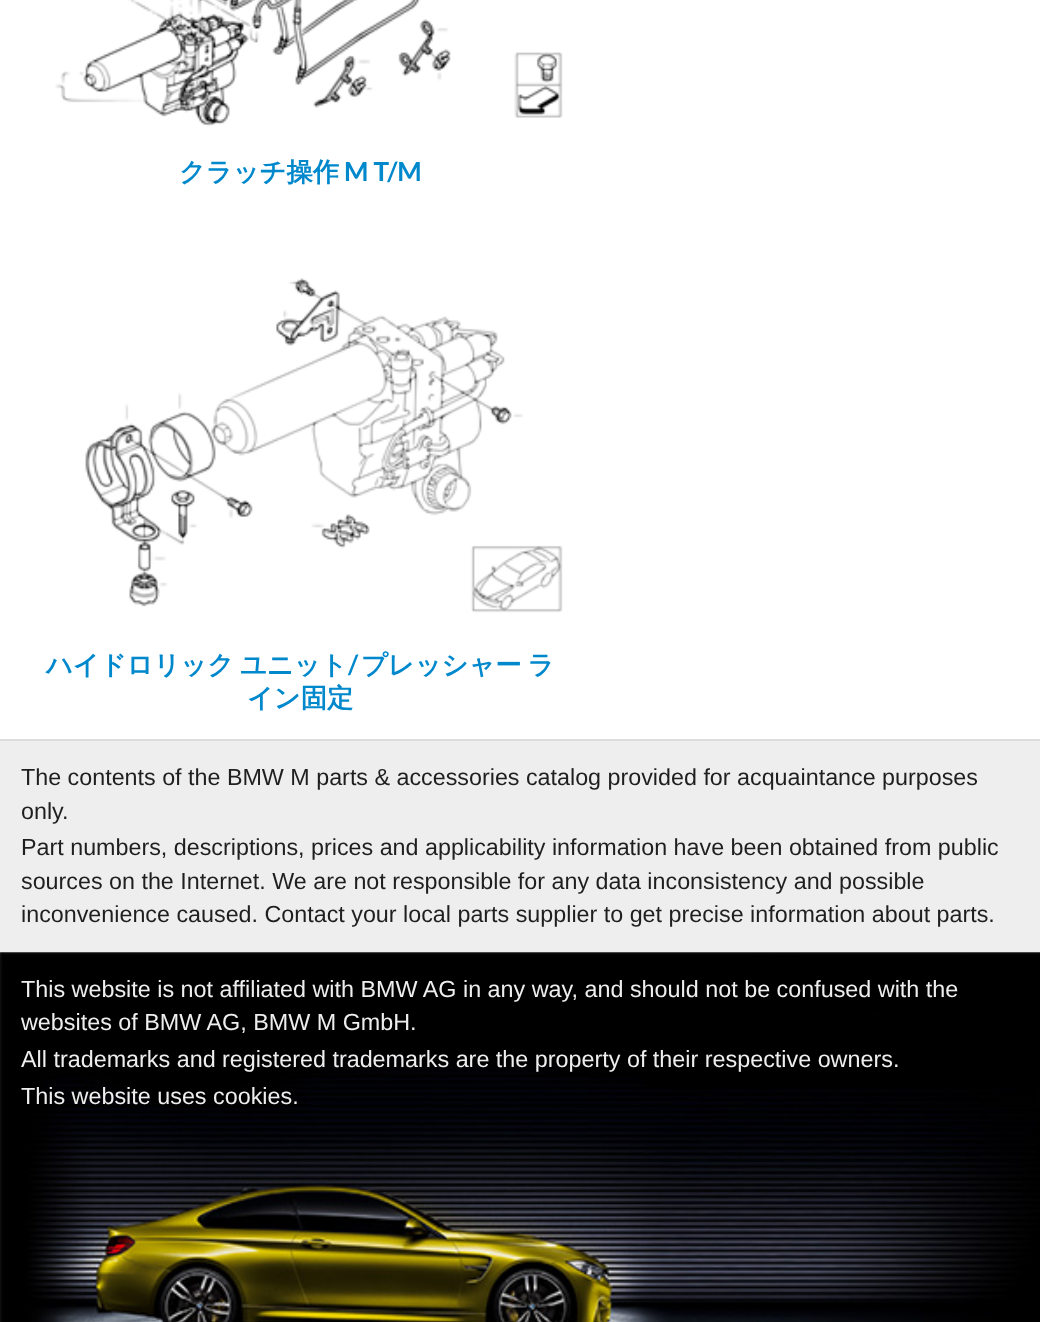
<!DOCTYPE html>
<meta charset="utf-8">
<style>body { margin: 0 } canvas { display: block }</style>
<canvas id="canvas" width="1040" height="1322"></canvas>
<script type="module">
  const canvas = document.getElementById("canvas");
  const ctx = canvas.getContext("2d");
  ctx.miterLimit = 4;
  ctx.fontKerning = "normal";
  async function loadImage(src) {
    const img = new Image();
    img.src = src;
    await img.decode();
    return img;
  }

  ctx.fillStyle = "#ffffff";
  ctx.fillRect(0, 0, 1040, 1322);
  ctx.drawImage(await loadImage("img1.png"), 55, 0, 508, 127);
  ctx.font = "bold 26.25px WenQuanYi Zen Hei";
  ctx.fillStyle = "#0088cc";
  ctx.fillText("クラッチ操作", 179, 181);
  ctx.font = "bold 26.25px Lato";
  ctx.fillText("M T/M", 344, 181);
  ctx.drawImage(await loadImage("img2.png"), 85, 278, 478, 335);
  ctx.wordSpacing = "-2px";
  ctx.font = "bold 26.25px WenQuanYi Zen Hei";
  ctx.fillText("ハイドロリック ユニット", 46, 674);
  ctx.wordSpacing = "0px";
  ctx.font = "bold 26.25px Lato";
  ctx.fillText("/", 348, 674);
  ctx.wordSpacing = "-2px";
  ctx.font = "bold 26.25px WenQuanYi Zen Hei";
  ctx.fillText("プレッシャー ラ", 361, 674);
  ctx.wordSpacing = "0px";
  ctx.fillText("イン固定", 247, 707);
  ctx.fillStyle = "#eeeeee";
  ctx.fillRect(0, 741, 1040, 211);
  ctx.fillStyle = "#dddddd";
  ctx.fillRect(0, 739, 1040, 2);
  ctx.font = "23.3px Liberation Sans";
  ctx.fillStyle = "#1f1f1f";
  ctx.fillText("The contents of the BMW M parts & accessories catalog provided for acquaintance purposes", 21, 785);
  ctx.fillText("only.", 21, 819);
  ctx.fillText("Part numbers, descriptions, prices and applicability information have been obtained from public", 21, 855);
  ctx.fillText("sources on the Internet. We are not responsible for any data inconsistency and possible", 21, 889);
  ctx.fillText("inconvenience caused. Contact your local parts supplier to get precise information about parts.", 21, 922);
  ctx.drawImage(await loadImage("img3.png"), 0, 952, 1040, 370);
  ctx.font = "23.35px Liberation Sans";
  ctx.fillStyle = "#eeeeee";
  ctx.fillText("This website is not affiliated with BMW AG in any way, and should not be confused with the", 21, 997);
  ctx.fillText("websites of BMW AG, BMW M GmbH.", 21, 1030);
  ctx.fillText("All trademarks and registered trademarks are the property of their respective owners.", 21, 1067);
  ctx.fillText("This website uses cookies.", 21, 1104);
</script>
